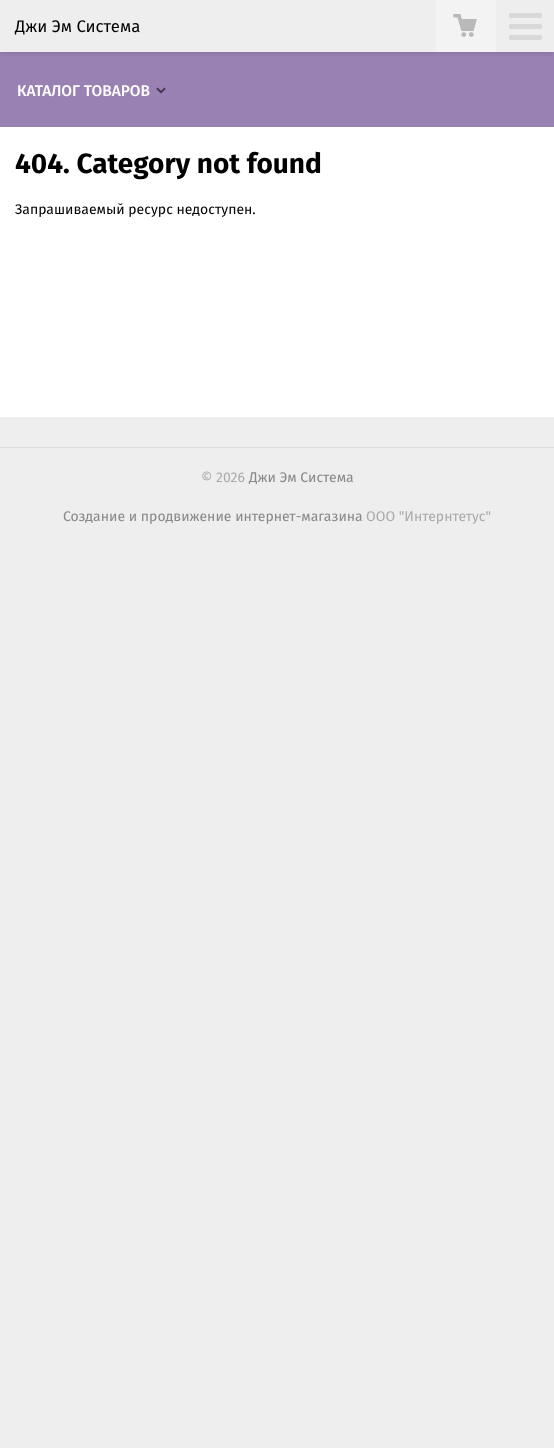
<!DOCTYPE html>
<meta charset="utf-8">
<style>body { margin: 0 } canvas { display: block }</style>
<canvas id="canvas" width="554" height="1448"></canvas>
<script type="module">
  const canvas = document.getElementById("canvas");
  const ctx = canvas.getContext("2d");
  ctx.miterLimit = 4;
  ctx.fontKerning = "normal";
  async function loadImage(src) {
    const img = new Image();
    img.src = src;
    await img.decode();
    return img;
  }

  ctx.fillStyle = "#eeeeee";
  ctx.fillRect(0, 0, 554, 1448);
  ctx.fillStyle = "#9a81b3";
  ctx.fillRect(0, 52, 554, 75);
  ctx.save();
  ctx.beginPath();
  ctx.rect(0, 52, 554, 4);
  ctx.clip();
  ctx.fillStyle = "rgba(0, 0, 0, 0.1)";
  ctx.filter = "blur(2.5px)";
  ctx.beginPath();
  ctx.rect(0, 2, 554, 52);
  ctx.fill();
  ctx.filter = "none";
  ctx.restore();
  ctx.font = "16.75px Fira Sans";
  ctx.fillStyle = "#000000";
  ctx.fillText("Джи Эм Система", 15, 32);
  ctx.fillStyle = "#f3f3f3";
  ctx.fillRect(436, 0, 60, 52);
  ctx.drawImage(await loadImage("img1.png"), 453, 14, 24, 23);
  ctx.drawImage(await loadImage("img2.png"), 509, 13, 33, 27);
  ctx.drawImage(await loadImage("img3.png"), 156, 87, 10, 7);
  ctx.font = "500 15.5px Fira Sans";
  ctx.fillStyle = "#ffffff";
  ctx.fillText("КАТАЛОГ ТОВАРОВ", 17, 96);
  ctx.fillRect(0, 127, 554, 290);
  ctx.font = "bold 28px Fira Sans";
  ctx.fillStyle = "#000000";
  ctx.fillText("404. Category not found", 15, 173);
  ctx.font = "14px Fira Sans";
  ctx.fillText("Запрашиваемый ресурс недоступен.", 15, 214);
  ctx.fillStyle = "#dddddd";
  ctx.fillRect(0, 447, 554, 1);
  ctx.fillStyle = "#aaaaaa";
  ctx.fillText("© 2026", 201, 482);
  ctx.fillStyle = "#888888";
  ctx.fillText("Джи Эм Система", 249, 482);
  ctx.fillText("Создание и продвижение интернет-магазина", 63, 521);
  ctx.fillStyle = "#aaaaaa";
  ctx.fillText("ООО \"Интернтетус\"", 366, 521);
</script>
